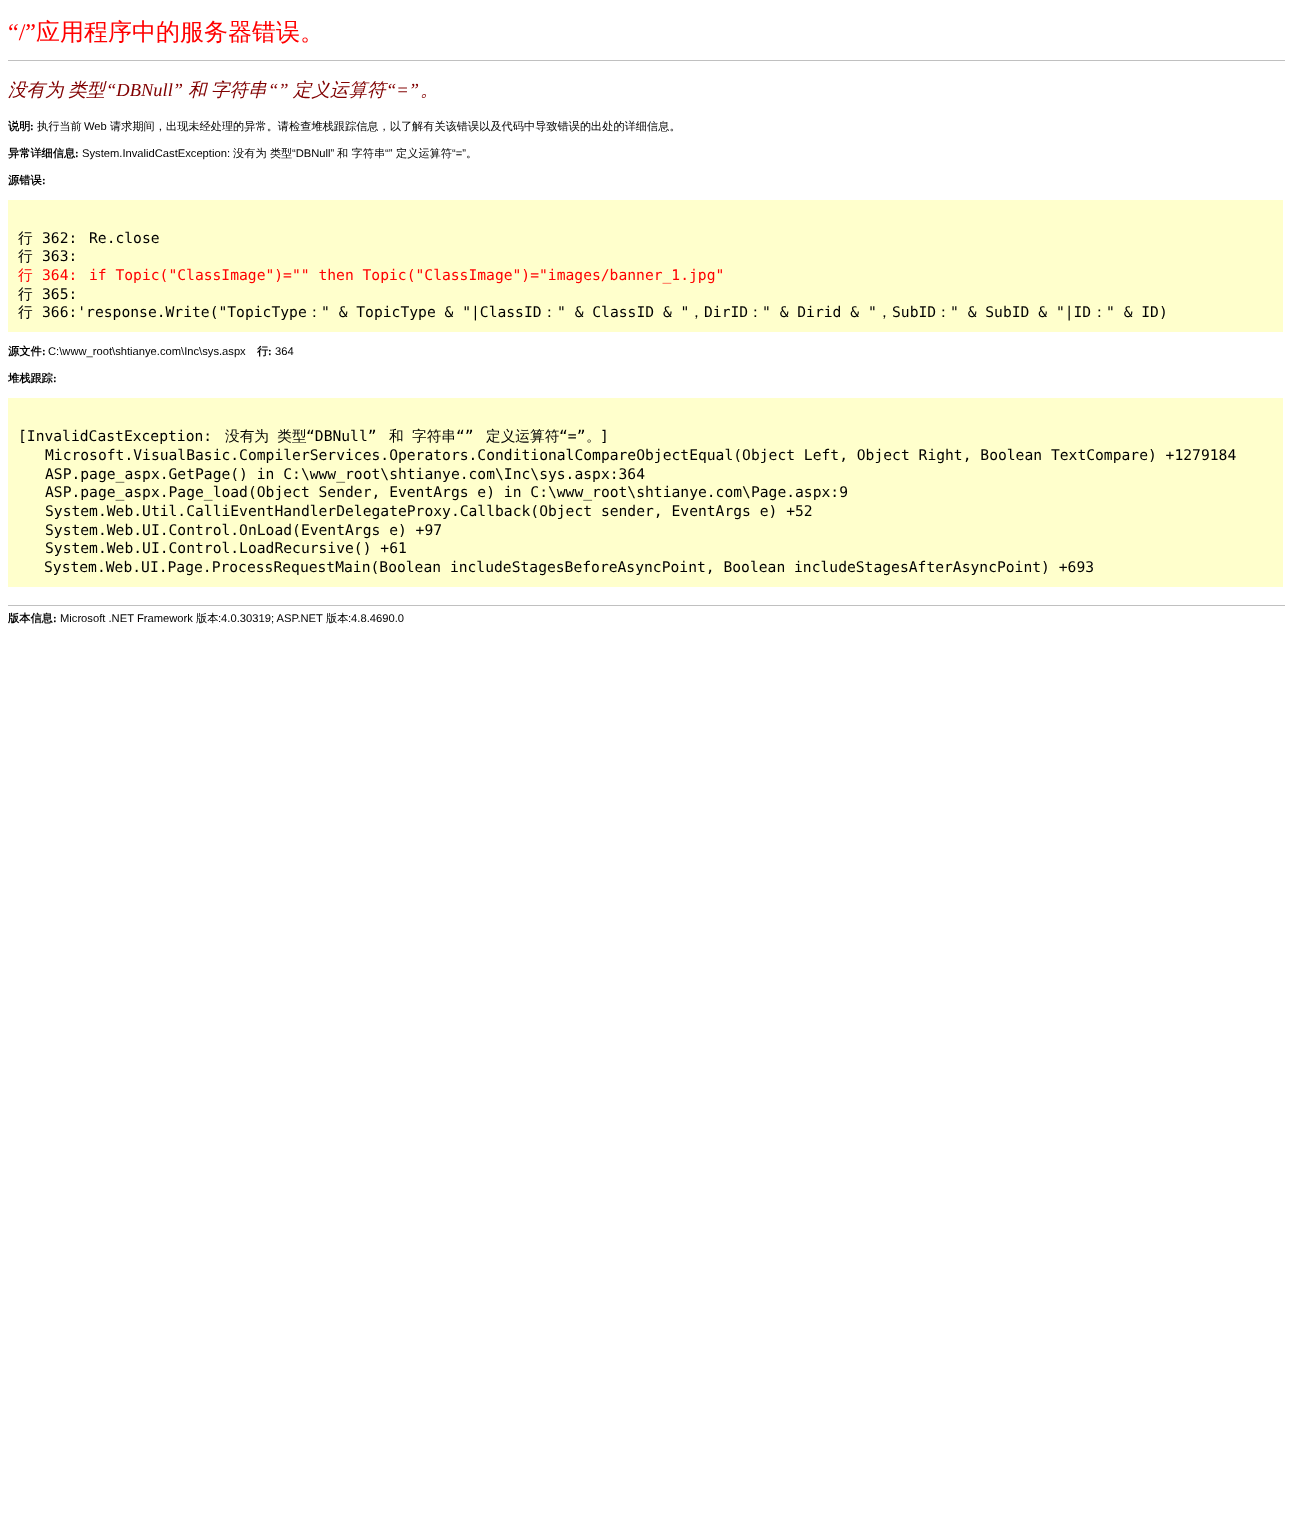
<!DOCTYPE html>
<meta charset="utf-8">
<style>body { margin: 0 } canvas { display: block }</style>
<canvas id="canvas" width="1291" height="1532"></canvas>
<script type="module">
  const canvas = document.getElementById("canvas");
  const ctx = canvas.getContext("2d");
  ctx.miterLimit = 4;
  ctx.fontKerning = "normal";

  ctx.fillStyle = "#ffffff";
  ctx.fillRect(0, 0, 1291, 1532);
  ctx.font = "24px Liberation Serif";
  ctx.fillStyle = "#ff0000";
  ctx.fillText("“/”", 8, 40);
  ctx.font = "500 24px WenQuanYi Zen Hei";
  ctx.fillText("应用程序中的服务器错误。", 36, 40);
  ctx.fillStyle = "#c0c0c0";
  ctx.fillRect(8, 60, 1277, 1);
  ctx.wordSpacing = "-1px";
  ctx.font = "italic 500 18.5px WenQuanYi Zen Hei";
  ctx.fillStyle = "#800000";
  ctx.fillText("没有为 类型", 8, 96);
  ctx.wordSpacing = "0px";
  ctx.font = "italic 18.5px Liberation Serif";
  ctx.fillText("“DBNull”", 106, 96);
  ctx.wordSpacing = "-1px";
  ctx.font = "italic 500 18.5px WenQuanYi Zen Hei";
  ctx.fillText("和 字符串", 188, 96);
  ctx.wordSpacing = "0px";
  ctx.font = "italic 18.5px Liberation Serif";
  ctx.fillText("“”", 268, 96);
  ctx.font = "italic 500 18.5px WenQuanYi Zen Hei";
  ctx.fillText("定义运算符", 293, 96);
  ctx.font = "italic 18.5px Liberation Serif";
  ctx.fillText("“=”", 386, 96);
  ctx.font = "italic 500 18.5px WenQuanYi Zen Hei";
  ctx.fillText("。", 420, 96);
  ctx.font = "bold 11.2px WenQuanYi Zen Hei";
  ctx.fillStyle = "#000000";
  ctx.fillText("说明", 8, 130);
  ctx.font = "bold 11.2px Liberation Serif";
  ctx.fillText(":", 30, 130);
  ctx.font = "500 11.2px WenQuanYi Zen Hei";
  ctx.fillText("执行当前", 37, 130);
  ctx.font = "11.2px Liberation Sans";
  ctx.fillText("Web", 84, 130);
  ctx.font = "500 11.2px WenQuanYi Zen Hei";
  ctx.fillText("请求期间，出现未经处理的异常。请检查堆栈跟踪信息，以了解有关该错误以及代码中导致错误的出处的详细信息。", 110, 130);
  ctx.font = "bold 11.2px WenQuanYi Zen Hei";
  ctx.fillText("异常详细信息", 8, 157);
  ctx.font = "bold 11.2px Liberation Serif";
  ctx.fillText(":", 75, 157);
  ctx.font = "11.2px Liberation Sans";
  ctx.fillText("System.InvalidCastException:", 82, 157);
  ctx.font = "500 11.2px WenQuanYi Zen Hei";
  ctx.fillText("没有为 类型", 233, 157);
  ctx.font = "11.2px Liberation Sans";
  ctx.fillText("“DBNull”", 292, 157);
  ctx.font = "500 11.2px WenQuanYi Zen Hei";
  ctx.fillText("和 字符串", 337, 157);
  ctx.font = "11.2px Liberation Sans";
  ctx.fillText("“”", 385, 157);
  ctx.font = "500 11.2px WenQuanYi Zen Hei";
  ctx.fillText("定义运算符", 396, 157);
  ctx.font = "11.2px Liberation Sans";
  ctx.fillText("“=”", 452, 157);
  ctx.font = "500 11.2px WenQuanYi Zen Hei";
  ctx.fillText("。", 466, 157);
  ctx.font = "bold 11.2px WenQuanYi Zen Hei";
  ctx.fillText("源错误", 8, 184);
  ctx.font = "bold 11.2px Liberation Serif";
  ctx.fillText(":", 42, 184);
  ctx.fillStyle = "#ffffcc";
  ctx.fillRect(8, 200, 1275, 132);
  ctx.font = "500 14.67px WenQuanYi Zen Hei";
  ctx.fillStyle = "#000000";
  ctx.fillText("行", 18, 243);
  ctx.font = "14.67px DejaVu Sans Mono";
  ctx.fillText("362:", 42, 243);
  ctx.fillText("Re.close", 89, 243);
  ctx.font = "500 14.67px WenQuanYi Zen Hei";
  ctx.fillText("行", 18, 261);
  ctx.font = "14.67px DejaVu Sans Mono";
  ctx.fillText("363:", 42, 261);
  ctx.font = "500 14.67px WenQuanYi Zen Hei";
  ctx.fillStyle = "#ff0000";
  ctx.fillText("行", 18, 280);
  ctx.font = "14.67px DejaVu Sans Mono";
  ctx.fillText("364:", 42, 280);
  ctx.fillText("if Topic(\"ClassImage\")=\"\" then Topic(\"ClassImage\")=\"images/banner_1.jpg\"", 89, 280);
  ctx.font = "500 14.67px WenQuanYi Zen Hei";
  ctx.fillStyle = "#000000";
  ctx.fillText("行", 18, 299);
  ctx.font = "14.67px DejaVu Sans Mono";
  ctx.fillText("365:", 42, 299);
  ctx.font = "500 14.67px WenQuanYi Zen Hei";
  ctx.fillText("行", 18, 317);
  ctx.font = "14.67px DejaVu Sans Mono";
  ctx.fillText("366:'response.Write(\"TopicType", 42, 317);
  ctx.font = "500 14.67px WenQuanYi Zen Hei";
  ctx.fillText("：", 307, 317);
  ctx.font = "14.67px DejaVu Sans Mono";
  ctx.fillText("\" & TopicType & \"|ClassID", 321, 317);
  ctx.font = "500 14.67px WenQuanYi Zen Hei";
  ctx.fillText("：", 542, 317);
  ctx.font = "14.67px DejaVu Sans Mono";
  ctx.fillText("\" & ClassID & \"", 557, 317);
  ctx.font = "500 14.67px WenQuanYi Zen Hei";
  ctx.fillText("，", 689, 317);
  ctx.font = "14.67px DejaVu Sans Mono";
  ctx.fillText("DirID", 704, 317);
  ctx.font = "500 14.67px WenQuanYi Zen Hei";
  ctx.fillText("：", 748, 317);
  ctx.font = "14.67px DejaVu Sans Mono";
  ctx.fillText("\" & Dirid & \"", 762, 317);
  ctx.font = "500 14.67px WenQuanYi Zen Hei";
  ctx.fillText("，", 877, 317);
  ctx.font = "14.67px DejaVu Sans Mono";
  ctx.fillText("SubID", 892, 317);
  ctx.font = "500 14.67px WenQuanYi Zen Hei";
  ctx.fillText("：", 936, 317);
  ctx.font = "14.67px DejaVu Sans Mono";
  ctx.fillText("\" & SubID & \"|ID", 950, 317);
  ctx.font = "500 14.67px WenQuanYi Zen Hei";
  ctx.fillText("：", 1092, 317);
  ctx.font = "14.67px DejaVu Sans Mono";
  ctx.fillText("\" & ID)", 1106, 317);
  ctx.font = "bold 11.2px WenQuanYi Zen Hei";
  ctx.fillText("源文件", 8, 355);
  ctx.font = "bold 11.2px Liberation Serif";
  ctx.fillText(":", 42, 355);
  ctx.font = "11.2px Liberation Sans";
  ctx.fillText("C:\\www_root\\shtianye.com\\Inc\\sys.aspx", 48, 355);
  ctx.font = "bold 11.2px WenQuanYi Zen Hei";
  ctx.fillText("行", 257, 355);
  ctx.font = "bold 11.2px Liberation Serif";
  ctx.fillText(":", 268, 355);
  ctx.font = "11.2px Liberation Sans";
  ctx.fillText("364", 275, 355);
  ctx.font = "bold 11.2px WenQuanYi Zen Hei";
  ctx.fillText("堆栈跟踪", 8, 382);
  ctx.font = "bold 11.2px Liberation Serif";
  ctx.fillText(":", 53, 382);
  ctx.fillStyle = "#ffffcc";
  ctx.fillRect(8, 398, 1275, 189);
  ctx.font = "14.67px DejaVu Sans Mono";
  ctx.fillStyle = "#000000";
  ctx.fillText("[InvalidCastException:", 18, 441);
  ctx.wordSpacing = "4px";
  ctx.font = "500 14.67px WenQuanYi Zen Hei";
  ctx.fillText("没有为 类型", 225, 441);
  ctx.wordSpacing = "0px";
  ctx.font = "14.67px DejaVu Sans Mono";
  ctx.fillText("“DBNull”", 306, 441);
  ctx.wordSpacing = "4px";
  ctx.font = "500 14.67px WenQuanYi Zen Hei";
  ctx.fillText("和 字符串", 389, 441);
  ctx.wordSpacing = "0px";
  ctx.font = "14.67px DejaVu Sans Mono";
  ctx.fillText("“”", 456, 441);
  ctx.font = "500 14.67px WenQuanYi Zen Hei";
  ctx.fillText("定义运算符", 486, 441);
  ctx.font = "14.67px DejaVu Sans Mono";
  ctx.fillText("“=”", 559, 441);
  ctx.font = "500 14.67px WenQuanYi Zen Hei";
  ctx.fillText("。", 586, 441);
  ctx.font = "14.67px DejaVu Sans Mono";
  ctx.fillText("]", 600, 441);
  ctx.fillText("Microsoft.VisualBasic.CompilerServices.Operators.ConditionalCompareObjectEqual(Object Left, Object Right, Boolean TextCompare) +1279184", 45, 460);
  ctx.fillText("ASP.page_aspx.GetPage() in C:\\www_root\\shtianye.com\\Inc\\sys.aspx:364", 45, 479);
  ctx.fillText("ASP.page_aspx.Page_load(Object Sender, EventArgs e) in C:\\www_root\\shtianye.com\\Page.aspx:9", 45, 497);
  ctx.fillText("System.Web.Util.CalliEventHandlerDelegateProxy.Callback(Object sender, EventArgs e) +52", 45, 516);
  ctx.fillText("System.Web.UI.Control.OnLoad(EventArgs e) +97", 45, 535);
  ctx.fillText("System.Web.UI.Control.LoadRecursive() +61", 45, 553);
  ctx.fillText("System.Web.UI.Page.ProcessRequestMain(Boolean includeStagesBeforeAsyncPoint, Boolean includeStagesAfterAsyncPoint) +693", 44, 572);
  ctx.fillStyle = "#c0c0c0";
  ctx.fillRect(8, 605, 1277, 1);
  ctx.font = "bold 11.2px WenQuanYi Zen Hei";
  ctx.fillStyle = "#000000";
  ctx.fillText("版本信息", 8, 622);
  ctx.font = "bold 11.2px Liberation Serif";
  ctx.fillText(":", 53, 622);
  ctx.font = "11.2px Liberation Sans";
  ctx.fillText("Microsoft .NET Framework", 60, 622);
  ctx.font = "500 11.2px WenQuanYi Zen Hei";
  ctx.fillText("版本", 196, 622);
  ctx.font = "11.2px Liberation Sans";
  ctx.fillText(":4.0.30319; ASP.NET", 218, 622);
  ctx.font = "500 11.2px WenQuanYi Zen Hei";
  ctx.fillText("版本", 326, 622);
  ctx.font = "11.2px Liberation Sans";
  ctx.fillText(":4.8.4690.0", 348, 622);
</script>
